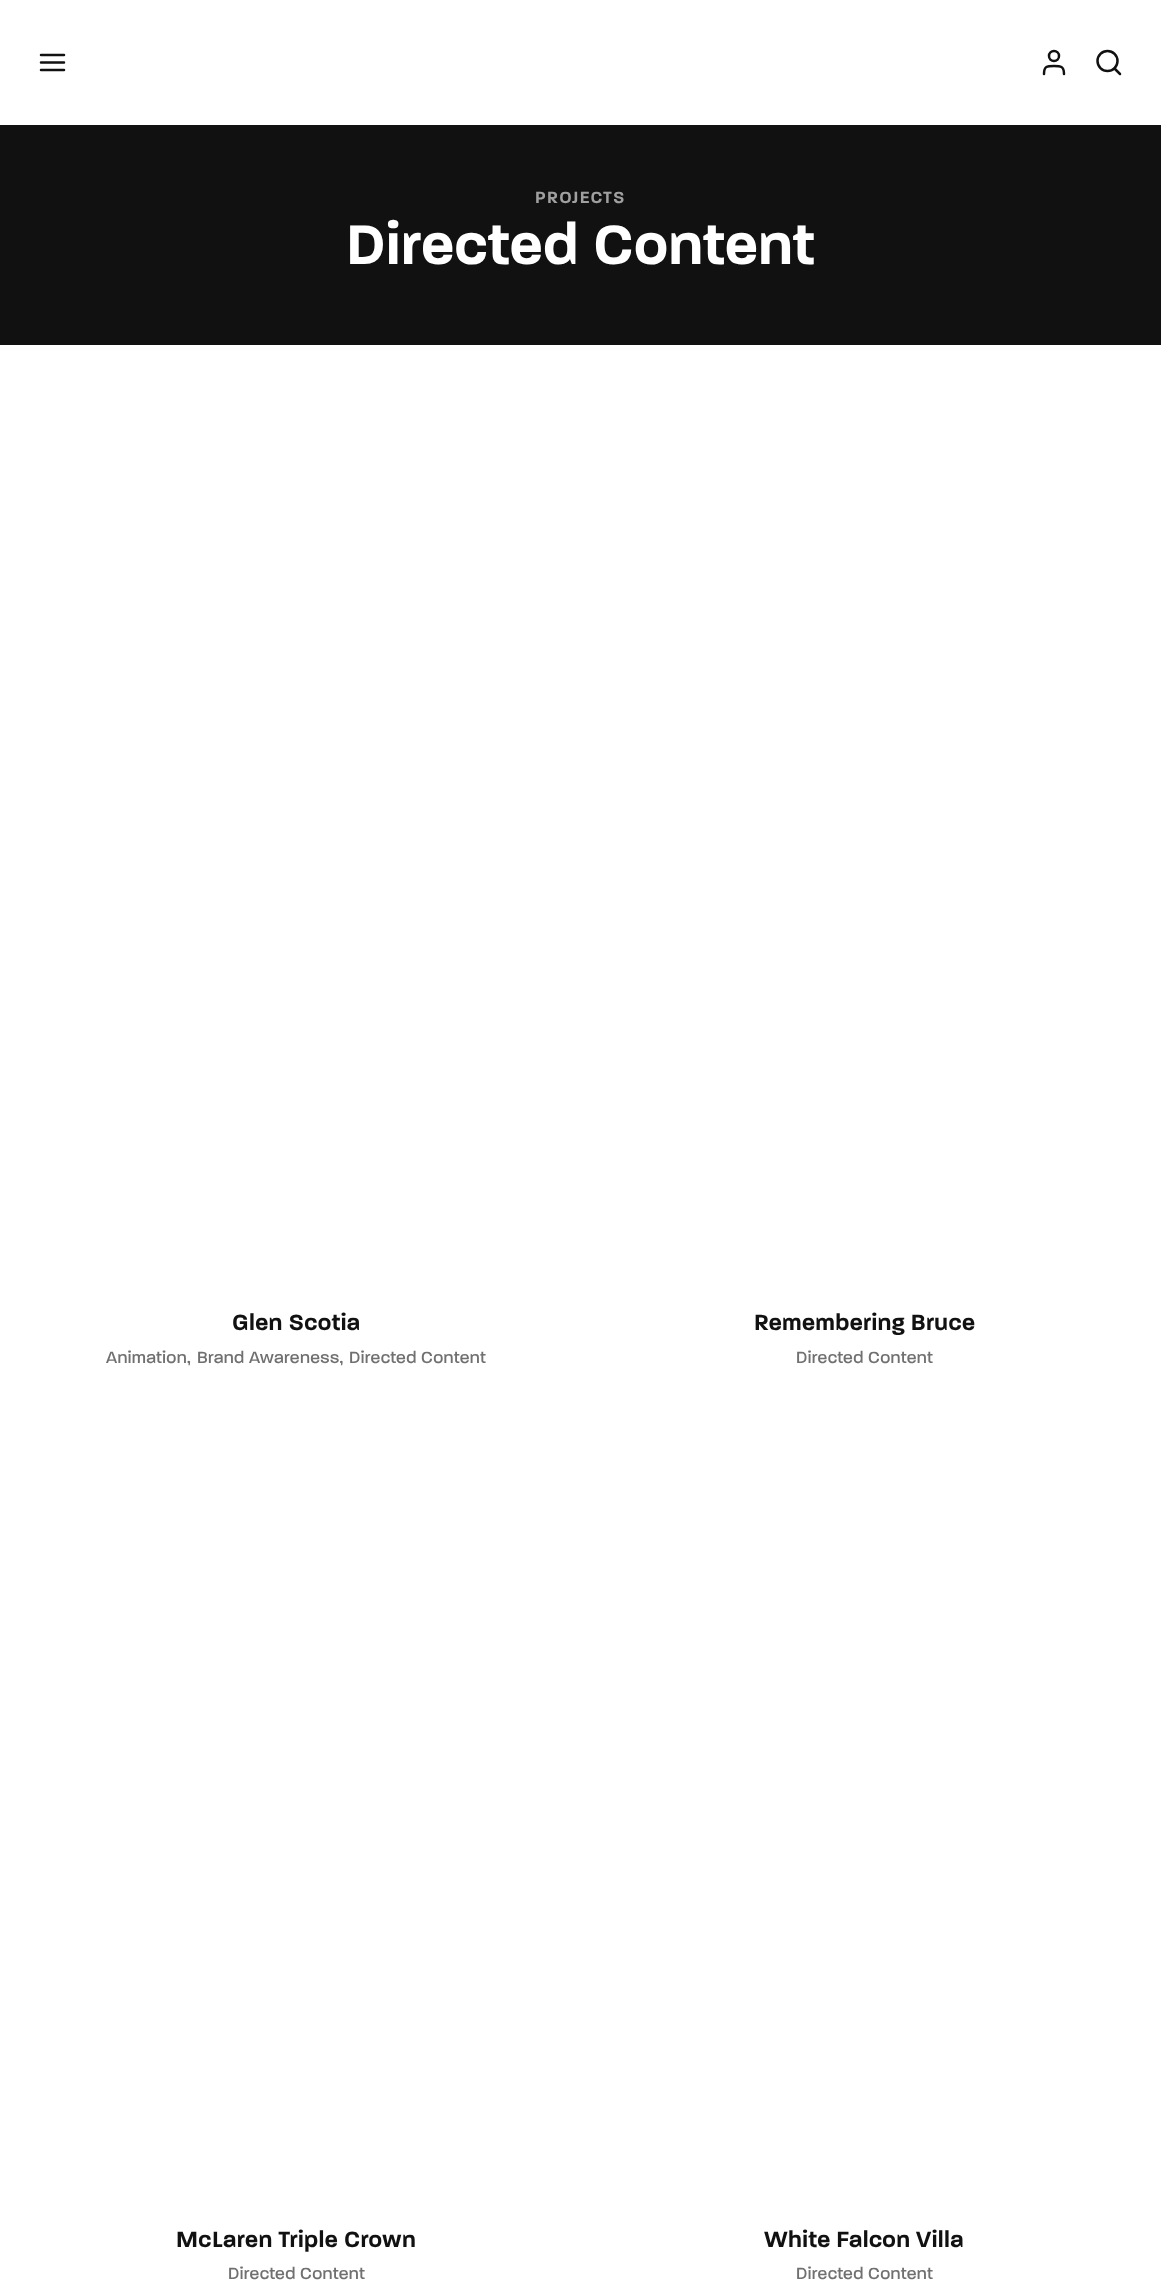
<!DOCTYPE html>
<meta charset="utf-8">
<style>body { margin: 0 } canvas { display: block }</style>
<canvas id="canvas" width="1161" height="2282"></canvas>
<script type="module">
  const canvas = document.getElementById("canvas");
  const ctx = canvas.getContext("2d");
  ctx.miterLimit = 4;
  ctx.fontKerning = "normal";

  ctx.fillStyle = "#ffffff";
  ctx.fillRect(0, 0, 1161, 2282);
  ctx.beginPath();
  ctx.moveTo(41, 62.5);
  ctx.lineTo(64, 62.5);
  ctx.moveTo(41, 55);
  ctx.lineTo(64, 55);
  ctx.moveTo(41, 70);
  ctx.lineTo(64, 70);
  ctx.strokeStyle = "#111111";
  ctx.lineWidth = 2.5;
  ctx.lineCap = "round";
  ctx.lineJoin = "round";
  ctx.stroke();
  ctx.beginPath();
  ctx.moveTo(1064, 74);
  ctx.bezierCurveTo(1064, 66, 1060.5, 66, 1054, 66);
  ctx.bezierCurveTo(1047, 66, 1044, 66, 1044, 74);
  ctx.stroke();
  ctx.beginPath();
  ctx.arc(1054, 56, 5, 0, Math.PI * 2);
  ctx.stroke();
  ctx.beginPath();
  ctx.arc(1107.5, 61, 10, 0, Math.PI * 2);
  ctx.stroke();
  ctx.beginPath();
  ctx.moveTo(1120, 74);
  ctx.lineTo(1114.5, 68.5);
  ctx.stroke();
  ctx.fillStyle = "#111111";
  ctx.fillRect(0, 125, 1161, 220);
  ctx.letterSpacing = "1.25px";
  ctx.font = "600 17.5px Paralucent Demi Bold";
  ctx.fillStyle = "#a0a0a0";
  ctx.fillText("PROJECTS", 535, 203);
  ctx.letterSpacing = "0.4px";
  ctx.font = "600 60px Paralucent Demi Bold";
  ctx.fillStyle = "#ffffff";
  ctx.fillText("Directed Content", 346, 264);
  ctx.font = "600 23.75px Paralucent Demi Bold";
  ctx.fillStyle = "#111111";
  ctx.fillText("Glen Scotia", 232, 1330);
  ctx.font = "500 17.5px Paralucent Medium";
  ctx.fillStyle = "#707070";
  ctx.fillText("Animation,", 106, 1363);
  ctx.fillText("Brand Awareness,", 197, 1363);
  ctx.fillText("Directed Content", 349, 1363);
  ctx.font = "600 23.75px Paralucent Demi Bold";
  ctx.fillStyle = "#111111";
  ctx.fillText("Remembering Bruce", 754, 1330);
  ctx.font = "500 17.5px Paralucent Medium";
  ctx.fillStyle = "#707070";
  ctx.fillText("Directed Content", 796, 1363);
  ctx.font = "600 23.75px Paralucent Demi Bold";
  ctx.fillStyle = "#111111";
  ctx.fillText("McLaren Triple Crown", 176, 2247);
  ctx.font = "500 17.5px Paralucent Medium";
  ctx.fillStyle = "#707070";
  ctx.fillText("Directed Content", 228, 2279);
  ctx.font = "600 23.75px Paralucent Demi Bold";
  ctx.fillStyle = "#111111";
  ctx.fillText("White Falcon Villa", 764, 2247);
  ctx.font = "500 17.5px Paralucent Medium";
  ctx.fillStyle = "#707070";
  ctx.fillText("Directed Content", 796, 2279);
</script>
